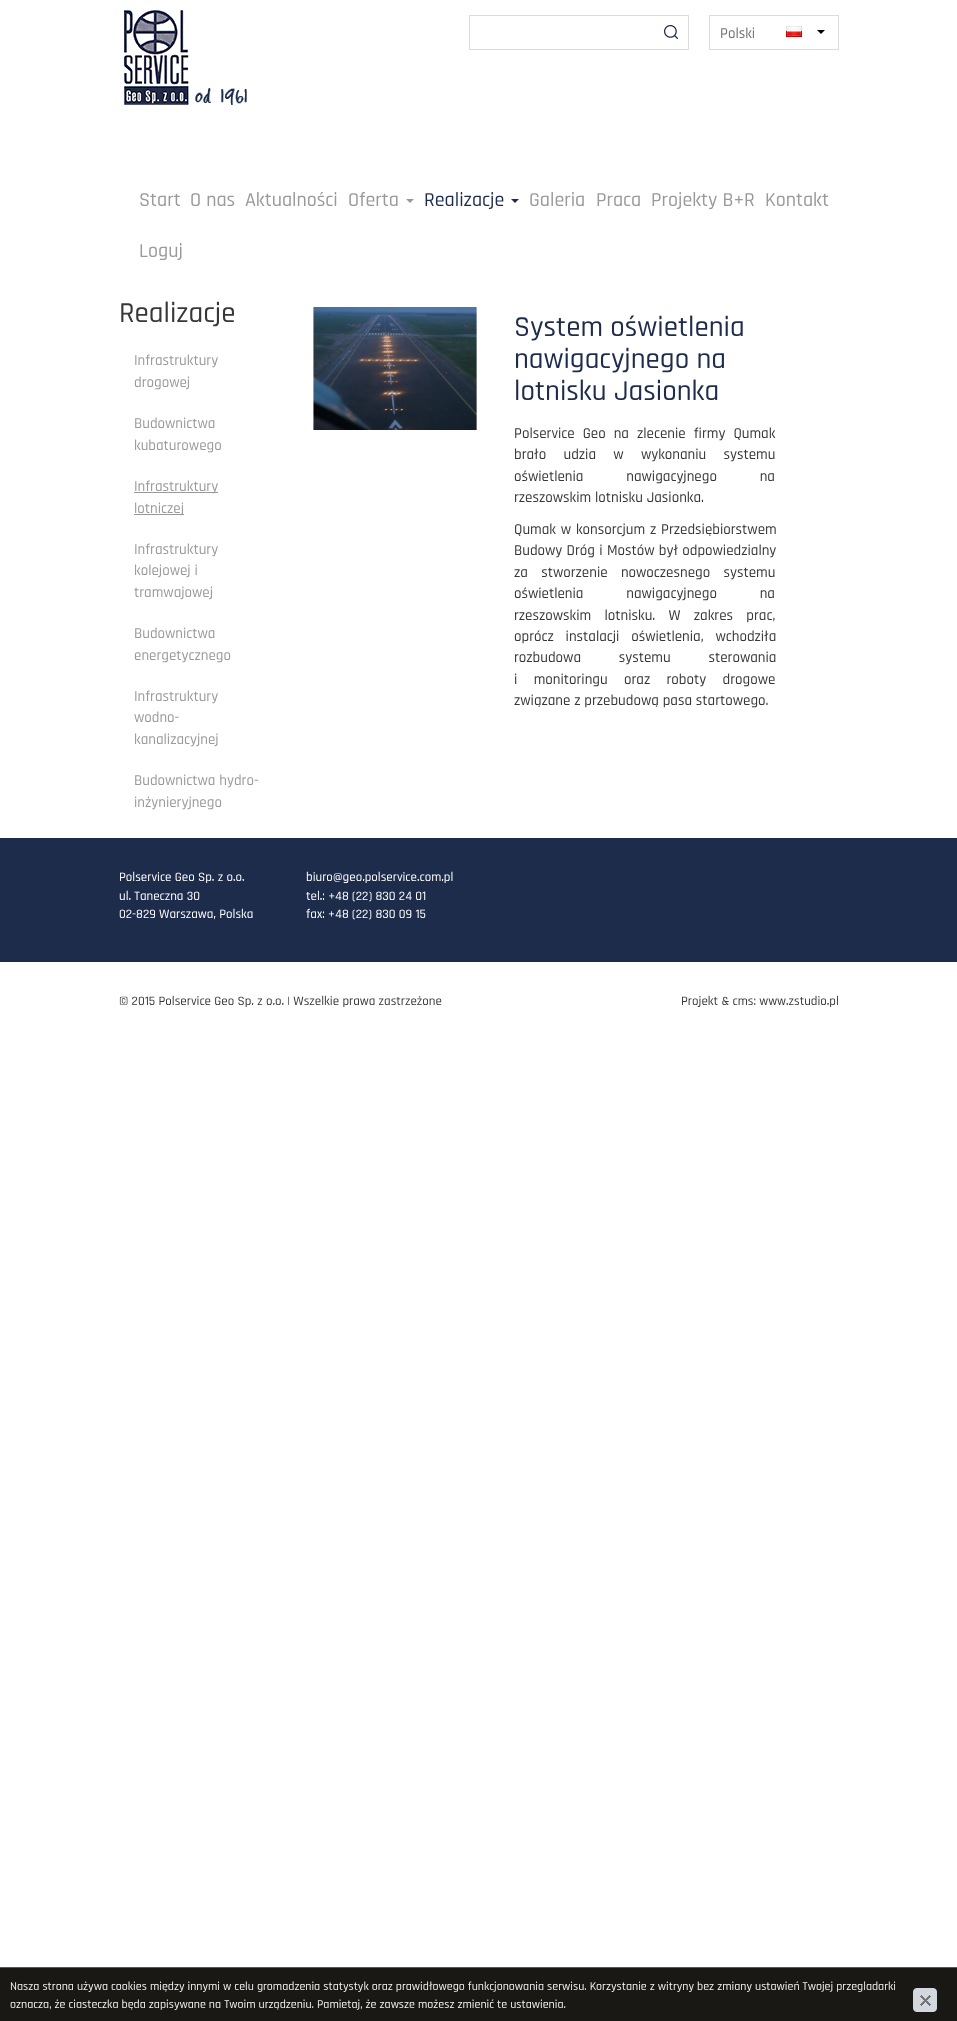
<!DOCTYPE html>
<meta charset="utf-8">
<style>body { margin: 0 } canvas { display: block }</style>
<canvas id="canvas" width="957" height="2021"></canvas>
<script type="module">
  const canvas = document.getElementById("canvas");
  const ctx = canvas.getContext("2d");
  ctx.miterLimit = 4;
  ctx.fontKerning = "normal";
  async function loadImage(src) {
    const img = new Image();
    img.src = src;
    await img.decode();
    return img;
  }

  ctx.fillStyle = "#ffffff";
  ctx.fillRect(0, 0, 957, 2021);
  ctx.drawImage(await loadImage("img1.png"), 124, 10, 123, 95);
  ctx.strokeStyle = "#dcdcdc";
  ctx.strokeRect(469.5, 15.5, 219, 34);
  ctx.drawImage(await loadImage("img2.png"), 664, 25, 14, 14);
  ctx.strokeRect(709.5, 15.5, 129, 34);
  ctx.font = "500 15px Rajdhani";
  ctx.fillStyle = "#727272";
  ctx.fillText("Polski", 720, 38);
  ctx.drawImage(await loadImage("img3.png"), 786, 26, 16, 11);
  ctx.fillStyle = "#000000";
  ctx.beginPath();
  ctx.moveTo(817, 30);
  ctx.lineTo(825, 30);
  ctx.lineTo(821, 34);
  ctx.closePath();
  ctx.fill();
  ctx.font = "500 20px Rajdhani";
  ctx.fillStyle = "#9b9a9a";
  ctx.fillText("Start", 139, 206);
  ctx.fillText("O nas", 190, 206);
  ctx.fillText("Aktualności", 245, 206);
  ctx.fillText("Oferta", 348, 206);
  ctx.beginPath();
  ctx.moveTo(406, 199);
  ctx.lineTo(414, 199);
  ctx.lineTo(410, 203);
  ctx.closePath();
  ctx.fill();
  ctx.fillStyle = "#1e2c4c";
  ctx.fillText("Realizacje", 424, 206);
  ctx.beginPath();
  ctx.moveTo(511, 199);
  ctx.lineTo(519, 199);
  ctx.lineTo(515, 203);
  ctx.closePath();
  ctx.fill();
  ctx.fillStyle = "#9b9a9a";
  ctx.fillText("Galeria", 529, 206);
  ctx.fillText("Praca", 596, 206);
  ctx.fillText("Projekty B+R", 651, 206);
  ctx.fillText("Kontakt", 765, 206);
  ctx.fillText("Loguj", 139, 257);
  ctx.font = "500 29px Rajdhani";
  ctx.fillStyle = "#373737";
  ctx.fillText("Realizacje", 119, 322);
  ctx.font = "500 15px Rajdhani";
  ctx.fillStyle = "#9b9a9a";
  ctx.fillText("Infrastruktury", 134, 365);
  ctx.fillText("drogowej", 134, 387);
  ctx.fillText("Budownictwa", 134, 428);
  ctx.fillText("kubaturowego", 134, 450);
  ctx.fillStyle = "#999999";
  ctx.fillRect(134, 492, 84, 1);
  ctx.fillStyle = "#9b9a9a";
  ctx.fillText("Infrastruktury", 134, 491);
  ctx.fillStyle = "#999999";
  ctx.fillRect(134, 514, 50, 1);
  ctx.fillStyle = "#9b9a9a";
  ctx.fillText("lotniczej", 134, 513);
  ctx.fillText("Infrastruktury", 134, 554);
  ctx.fillText("kolejowej i", 134, 575);
  ctx.fillText("tramwajowej", 134, 597);
  ctx.fillText("Budownictwa", 134, 638);
  ctx.fillText("energetycznego", 134, 660);
  ctx.fillText("Infrastruktury", 134, 701);
  ctx.fillText("wodno-", 134, 722);
  ctx.fillText("kanalizacyjnej", 134, 744);
  ctx.fillText("Budownictwa hydro-", 134, 785);
  ctx.fillText("inżynieryjnego", 134, 807);
  ctx.drawImage(await loadImage("img4.png"), 313, 307, 164, 123);
  ctx.font = "500 29px Rajdhani";
  ctx.fillStyle = "#1e2c4c";
  ctx.fillText("System oświetlenia", 514, 336);
  ctx.fillText("nawigacyjnego na", 514, 368);
  ctx.fillText("lotnisku Jasionka", 514, 400);
  ctx.wordSpacing = "4.25px";
  ctx.font = "500 15px Rajdhani";
  ctx.fillStyle = "#373737";
  ctx.fillText("Polservice Geo na zlecenie firmy Qumak", 514, 438);
  ctx.wordSpacing = "13.5px";
  ctx.fillText("brało udzia w wykonaniu systemu", 514, 459);
  ctx.wordSpacing = "39px";
  ctx.fillText("oświetlenia nawigacyjnego na", 514, 481);
  ctx.wordSpacing = "0px";
  ctx.fillText("rzeszowskim lotnisku Jasionka.", 514, 502);
  ctx.wordSpacing = "1px";
  ctx.fillText("Qumak w konsorcjum z Przedsiębiorstwem", 514, 534);
  ctx.wordSpacing = "0.5px";
  ctx.fillText("Budowy Dróg i Mostów był odpowiedzialny", 514, 555);
  ctx.wordSpacing = "9.5px";
  ctx.fillText("za stworzenie nowoczesnego systemu", 514, 577);
  ctx.wordSpacing = "39px";
  ctx.fillText("oświetlenia nawigacyjnego na", 514, 598);
  ctx.wordSpacing = "9.5px";
  ctx.fillText("rzeszowskim lotnisku. W zakres prac,", 514, 620);
  ctx.wordSpacing = "8px";
  ctx.fillText("oprócz instalacji oświetlenia, wchodziła", 514, 641);
  ctx.wordSpacing = "34px";
  ctx.fillText("rozbudowa systemu sterowania", 514, 662);
  ctx.wordSpacing = "12.5px";
  ctx.fillText("i monitoringu oraz roboty drogowe", 514, 684);
  ctx.wordSpacing = "0px";
  ctx.fillText("związane z przebudową pasa startowego.", 514, 705);
  ctx.fillStyle = "#1e2c4c";
  ctx.fillRect(0, 838, 957, 124);
  ctx.font = "500 13px Rajdhani";
  ctx.fillStyle = "#ffffff";
  ctx.fillText("Polservice Geo Sp. z o.o.", 119, 881);
  ctx.fillText("ul. Taneczna 30", 119, 900);
  ctx.fillText("02-829 Warszawa, Polska", 119, 918);
  ctx.fillText("biuro@geo.polservice.com.pl", 306, 881);
  ctx.fillText("tel.: +48 (22) 830 24 01", 306, 900);
  ctx.fillText("fax: +48 (22) 830 09 15", 306, 918);
  ctx.fillStyle = "#373737";
  ctx.fillText("© 2015 Polservice Geo Sp. z o.o. | Wszelkie prawa zastrzeżone", 119, 1005);
  ctx.fillText("Projekt & cms: www.zstudio.pl", 681, 1005);
  ctx.fillStyle = "#1a1815";
  ctx.fillRect(0, 1968, 957, 53);
  ctx.fillStyle = "#5f554c";
  ctx.fillRect(0, 1967, 957, 1);
  ctx.font = "500 12px Rajdhani";
  ctx.fillStyle = "#f1f1f1";
  ctx.fillText("Nasza strona używa cookies między innymi w celu gromadzenia statystyk oraz prawidłowego funkcjonowania serwisu. Korzystanie z witryny bez zmiany ustawień Twojej przegladarki", 10, 1990);
  ctx.fillText("oznacza, że ciasteczka będa zapisywane na Twoim urządzeniu. Pamietaj, że zawsze możesz zmienić te ustawienia.", 10, 2008);
  ctx.drawImage(await loadImage("img5.png"), 913, 1988, 24, 24);
</script>
